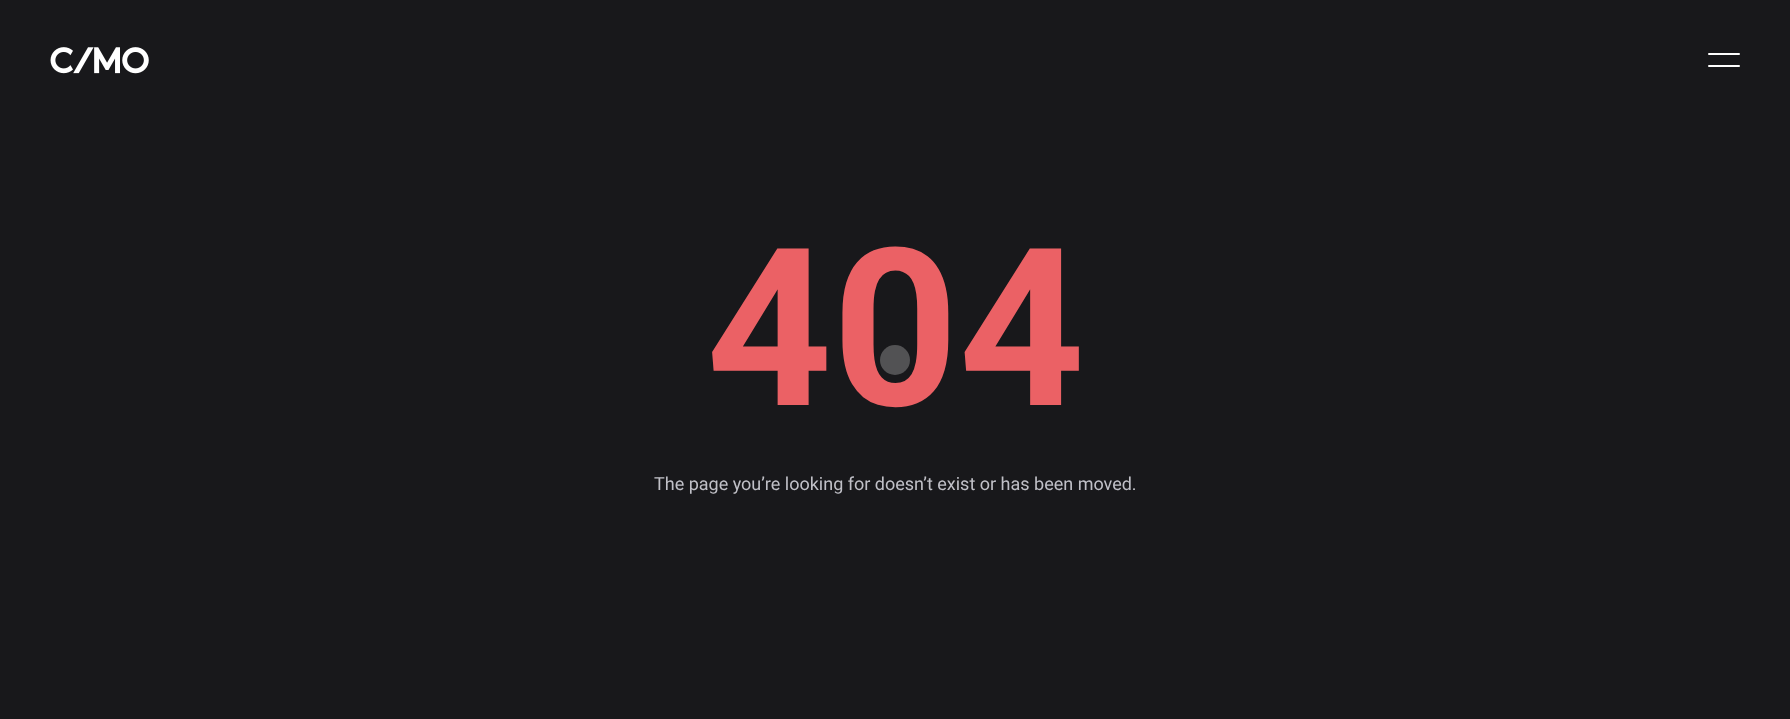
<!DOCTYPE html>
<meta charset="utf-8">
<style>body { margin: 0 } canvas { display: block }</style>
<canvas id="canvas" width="1790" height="719"></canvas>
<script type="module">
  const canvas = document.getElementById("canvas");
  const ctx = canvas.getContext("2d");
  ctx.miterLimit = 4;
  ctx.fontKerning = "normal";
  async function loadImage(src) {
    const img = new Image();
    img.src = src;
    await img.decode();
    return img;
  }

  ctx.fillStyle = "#18181b";
  ctx.fillRect(0, 0, 1790, 719);
  ctx.drawImage(await loadImage("img1.png"), 50, 47, 99, 27);
  ctx.fillStyle = "#ffffff";
  ctx.beginPath();
  ctx.roundRect(1708, 53, 32, 2, 1);
  ctx.fill();
  ctx.beginPath();
  ctx.roundRect(1708, 65, 32, 2, 1);
  ctx.fill();
  ctx.font = "bold 220px Roboto";
  ctx.fillStyle = "#eb6165";
  ctx.fillText("404", 706, 405);
  ctx.font = "18px Roboto";
  ctx.fillStyle = "#c0c0c7";
  ctx.fillText("The page you’re looking for doesn’t exist or has been moved.", 654, 490);
  ctx.fillStyle = "#525254";
  ctx.beginPath();
  ctx.arc(895, 360, 15, 0, Math.PI * 2);
  ctx.fill();
</script>
